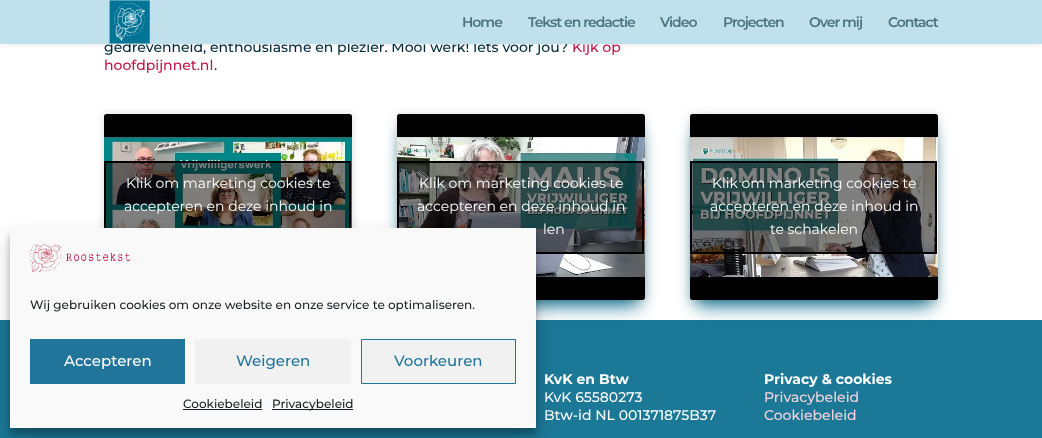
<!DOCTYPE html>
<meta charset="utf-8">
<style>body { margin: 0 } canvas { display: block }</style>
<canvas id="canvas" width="1042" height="438"></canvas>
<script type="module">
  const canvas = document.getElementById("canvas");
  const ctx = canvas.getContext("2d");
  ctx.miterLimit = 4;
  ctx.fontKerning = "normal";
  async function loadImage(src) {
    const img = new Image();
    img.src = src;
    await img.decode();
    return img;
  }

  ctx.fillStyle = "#ffffff";
  ctx.fillRect(0, 0, 1042, 438);
  ctx.fillStyle = "rgba(0, 0, 0, 0.1)";
  ctx.filter = "blur(3.5px)";
  ctx.beginPath();
  ctx.rect(0, 0, 1042, 44);
  ctx.fill();
  ctx.filter = "none";
  ctx.font = "500 14px Montserrat";
  ctx.fillStyle = "#00293a";
  ctx.fillText("gedrevenheid, enthousiasme en plezier. Mooi werk! Iets voor jou?", 104, 52);
  ctx.fillStyle = "#c11747";
  ctx.fillText("Kijk op", 572, 52);
  ctx.fillStyle = "#c0e1ec";
  ctx.fillRect(0, 0, 1042, 44);
  ctx.drawImage(await loadImage("img1.png"), 109, 0, 41, 44);
  ctx.letterSpacing = "-1px";
  ctx.font = "600 14px Montserrat";
  ctx.fillStyle = "#4d7381";
  ctx.fillText("Home", 462, 27);
  ctx.fillText("Tekst en redactie", 528, 27);
  ctx.fillText("Video", 660, 27);
  ctx.fillText("Projecten", 723, 27);
  ctx.fillText("Over mij", 809, 27);
  ctx.fillText("Contact", 888, 27);
  ctx.letterSpacing = "0px";
  ctx.font = "500 14px Montserrat";
  ctx.fillStyle = "#c11747";
  ctx.fillText("hoofdpijnnet.nl", 104, 70);
  ctx.fillStyle = "#00293a";
  ctx.fillText(".", 214, 70);
  ctx.fillStyle = "rgba(0, 0, 0, 0.15)";
  ctx.filter = "blur(5px)";
  ctx.beginPath();
  ctx.roundRect(104, 115, 248, 186, 3);
  ctx.fill();
  ctx.filter = "none";
  ctx.fillStyle = "rgba(0, 0, 0, 0.5)";
  ctx.filter = "blur(0.5px)";
  ctx.beginPath();
  ctx.roundRect(104, 114, 248, 186, 3);
  ctx.fill();
  ctx.filter = "none";
  ctx.drawImage(await loadImage("img2.png"), 104, 114, 248, 114);
  ctx.fillRect(106, 163, 243, 65);
  ctx.strokeStyle = "#000000";
  ctx.lineWidth = 2;
  ctx.strokeRect(105, 162, 245, 91);
  ctx.font = "14px Montserrat";
  ctx.fillStyle = "#ffffff";
  ctx.fillText("Klik om marketing cookies te", 126, 188);
  ctx.fillText("accepteren en deze inhoud in", 124, 211);
  ctx.fillStyle = "#1b7897";
  ctx.fillRect(0, 320, 1042, 118);
  ctx.filter = "blur(9px)";
  ctx.beginPath();
  ctx.rect(403, 132, 236, 174);
  ctx.fill();
  ctx.filter = "none";
  ctx.fillStyle = "rgba(0, 0, 0, 0.15)";
  ctx.filter = "blur(5px)";
  ctx.beginPath();
  ctx.roundRect(397, 115, 248, 186, 3);
  ctx.fill();
  ctx.filter = "none";
  ctx.fillStyle = "rgba(0, 0, 0, 0.5)";
  ctx.filter = "blur(0.5px)";
  ctx.beginPath();
  ctx.roundRect(397, 114, 248, 186, 3);
  ctx.fill();
  ctx.filter = "none";
  ctx.drawImage(await loadImage("img3.png"), 397, 114, 248, 186);
  ctx.beginPath();
  ctx.rect(398, 162, 245, 91);
  ctx.fill();
  ctx.stroke();
  ctx.fillStyle = "#ffffff";
  ctx.fillText("Klik om marketing cookies te", 419, 188);
  ctx.fillText("accepteren en deze inhoud in", 417, 211);
  ctx.fillText("len", 543, 234);
  ctx.fillStyle = "#1b7897";
  ctx.filter = "blur(9px)";
  ctx.beginPath();
  ctx.rect(696, 132, 236, 174);
  ctx.fill();
  ctx.filter = "none";
  ctx.fillStyle = "rgba(0, 0, 0, 0.15)";
  ctx.filter = "blur(5px)";
  ctx.beginPath();
  ctx.roundRect(690, 115, 248, 186, 3);
  ctx.fill();
  ctx.filter = "none";
  ctx.fillStyle = "rgba(0, 0, 0, 0.5)";
  ctx.filter = "blur(0.5px)";
  ctx.beginPath();
  ctx.roundRect(690, 114, 248, 186, 3);
  ctx.fill();
  ctx.filter = "none";
  ctx.drawImage(await loadImage("img4.png"), 690, 114, 248, 186);
  ctx.beginPath();
  ctx.rect(691, 162, 245, 91);
  ctx.fill();
  ctx.stroke();
  ctx.fillStyle = "#ffffff";
  ctx.fillText("Klik om marketing cookies te", 712, 188);
  ctx.fillText("accepteren en deze inhoud in", 710, 211);
  ctx.fillText("te schakelen", 770, 234);
  ctx.font = "bold 14px Montserrat";
  ctx.fillText("KvK en Btw", 544, 384);
  ctx.font = "500 14px Montserrat";
  ctx.fillText("KvK 65580273", 544, 402);
  ctx.fillText("Btw-id NL 001371875B37", 544, 420);
  ctx.font = "bold 14px Montserrat";
  ctx.fillText("Privacy & cookies", 764, 384);
  ctx.font = "500 14px Montserrat";
  ctx.fillStyle = "#f5d3dd";
  ctx.fillText("Privacybeleid", 764, 402);
  ctx.fillText("Cookiebeleid", 764, 420);
  ctx.fillStyle = "rgba(0, 0, 0, 0.23)";
  ctx.filter = "blur(3px)";
  ctx.beginPath();
  ctx.rect(10, 234, 526, 200);
  ctx.fill();
  ctx.filter = "none";
  ctx.fillStyle = "rgba(0, 0, 0, 0.19)";
  ctx.filter = "blur(10px)";
  ctx.beginPath();
  ctx.rect(10, 238, 526, 200);
  ctx.fill();
  ctx.filter = "none";
  ctx.fillStyle = "#f9f9f9";
  ctx.fillRect(10, 228, 526, 200);
  ctx.drawImage(await loadImage("img5.png"), 30, 243, 100, 29);
  ctx.font = "500 12px Montserrat";
  ctx.fillStyle = "#191e23";
  ctx.fillText("Wij gebruiken cookies om onze website en onze service te optimaliseren.", 30, 309);
  ctx.fillStyle = "#21759b";
  ctx.fillRect(30, 339, 155, 45);
  ctx.font = "500 15px Montserrat";
  ctx.fillStyle = "#ffffff";
  ctx.fillText("Accepteren", 64, 366);
  ctx.fillStyle = "#f1f1f1";
  ctx.fillRect(195, 339, 156, 45);
  ctx.fillStyle = "#21759b";
  ctx.fillText("Weigeren", 236, 366);
  ctx.fillStyle = "#f1f1f1";
  ctx.beginPath();
  ctx.rect(361.5, 339.5, 154, 44);
  ctx.fill();
  ctx.strokeStyle = "#21759b";
  ctx.lineWidth = 1;
  ctx.stroke();
  ctx.fillStyle = "#21759b";
  ctx.fillText("Voorkeuren", 394, 366);
  ctx.font = "500 12px Montserrat";
  ctx.fillStyle = "#191e23";
  ctx.fillText("Cookiebeleid", 183, 408);
  ctx.fillRect(183, 409, 79, 1);
  ctx.fillRect(272, 409, 81, 1);
  ctx.fillText("Privacybeleid", 272, 408);
</script>
